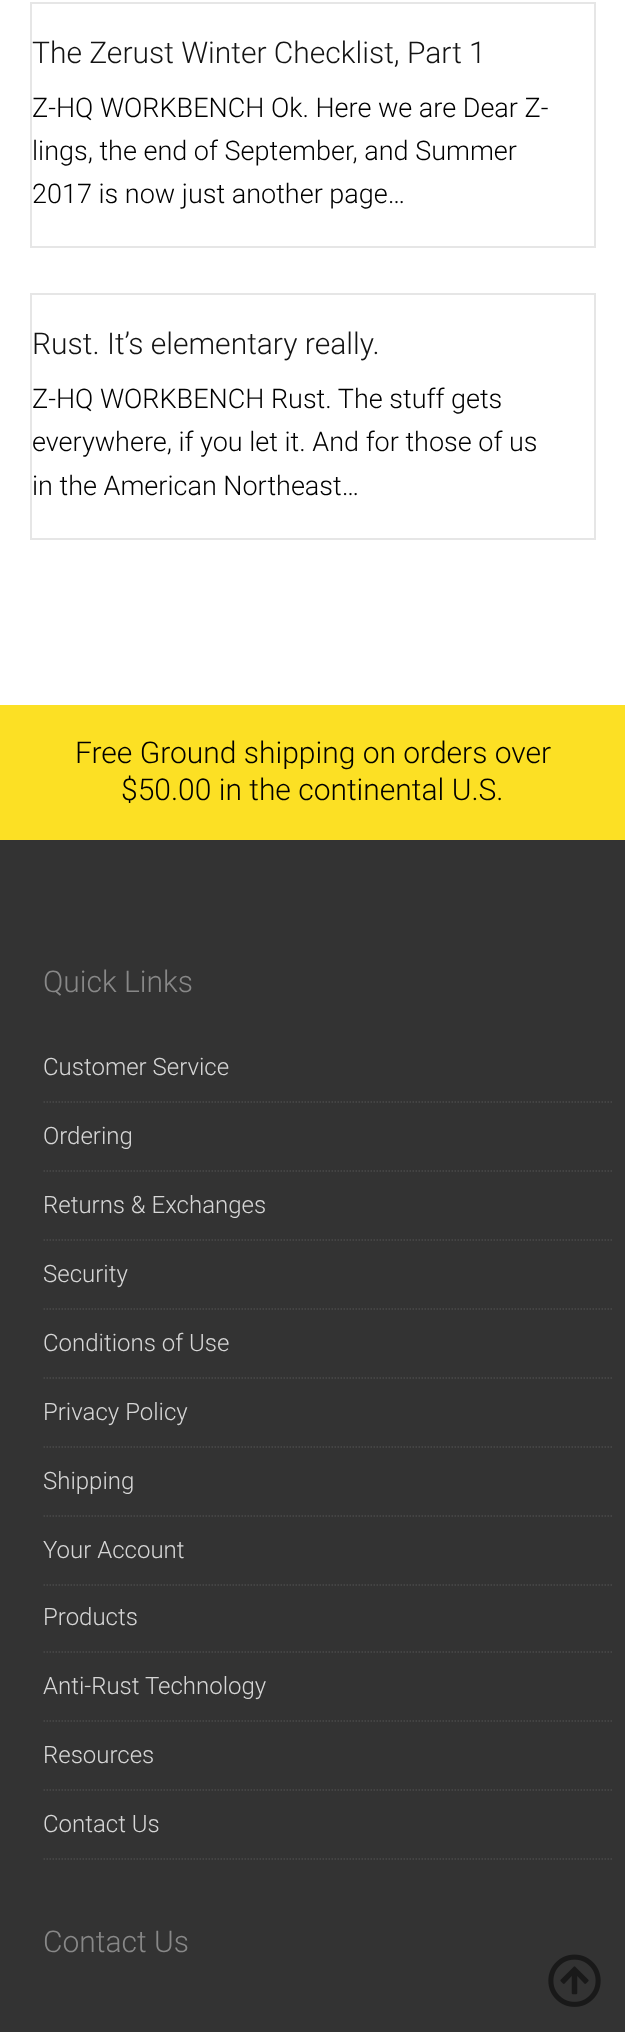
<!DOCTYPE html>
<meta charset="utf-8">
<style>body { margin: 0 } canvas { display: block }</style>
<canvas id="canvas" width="625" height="2032"></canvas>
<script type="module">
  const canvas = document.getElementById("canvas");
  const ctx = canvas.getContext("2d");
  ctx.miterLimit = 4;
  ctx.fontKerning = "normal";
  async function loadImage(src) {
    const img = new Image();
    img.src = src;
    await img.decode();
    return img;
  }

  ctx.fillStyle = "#ffffff";
  ctx.fillRect(0, 0, 625, 2032);
  ctx.strokeStyle = "#e6e6e6";
  ctx.lineWidth = 2;
  ctx.strokeRect(31, 3, 564, 244);
  ctx.font = "300 30px Roboto";
  ctx.fillStyle = "#131313";
  ctx.fillText("The Zerust Winter Checklist, Part 1", 32, 63);
  ctx.font = "300 27px Roboto";
  ctx.fillStyle = "#000000";
  ctx.fillText("Z-HQ WORKBENCH Ok. Here we are Dear Z-", 32, 117);
  ctx.fillText("lings, the end of September, and Summer", 32, 160);
  ctx.fillText("2017 is now just another page…", 32, 203);
  ctx.strokeRect(31, 294, 564, 245);
  ctx.font = "300 30px Roboto";
  ctx.fillStyle = "#131313";
  ctx.fillText("Rust. It’s elementary really.", 32, 354);
  ctx.font = "300 27px Roboto";
  ctx.fillStyle = "#000000";
  ctx.fillText("Z-HQ WORKBENCH Rust. The stuff gets", 32, 408);
  ctx.fillText("everywhere, if you let it. And for those of us", 32, 451);
  ctx.fillText("in the American Northeast…", 32, 495);
  ctx.fillStyle = "#fce024";
  ctx.fillRect(0, 705, 625, 135);
  ctx.font = "300 30px Roboto";
  ctx.fillStyle = "#000000";
  ctx.fillText("Free Ground shipping on orders over", 75, 763);
  ctx.fillText("$50.00 in the continental U.S.", 121, 800);
  ctx.fillStyle = "#333333";
  ctx.fillRect(0, 840, 625, 1192);
  ctx.fillStyle = "#888888";
  ctx.fillText("Quick Links", 43, 992);
  ctx.beginPath();
  ctx.moveTo(43.5, 1102);
  ctx.lineTo(613.5, 1102);
  ctx.strokeStyle = "#4b4b4b";
  ctx.lineWidth = 1.5;
  ctx.setLineDash([1.5, 1.5]);
  ctx.stroke();
  ctx.font = "300 24px Roboto";
  ctx.fillStyle = "#d6d6d6";
  ctx.fillText("Customer Service", 43, 1075);
  ctx.beginPath();
  ctx.moveTo(43.5, 1171);
  ctx.lineTo(613.5, 1171);
  ctx.stroke();
  ctx.fillText("Ordering", 43, 1144);
  ctx.beginPath();
  ctx.moveTo(43.5, 1240);
  ctx.lineTo(613.5, 1240);
  ctx.stroke();
  ctx.fillText("Returns & Exchanges", 43, 1213);
  ctx.beginPath();
  ctx.moveTo(43.5, 1309);
  ctx.lineTo(613.5, 1309);
  ctx.stroke();
  ctx.fillText("Security", 43, 1282);
  ctx.beginPath();
  ctx.moveTo(43.5, 1378);
  ctx.lineTo(613.5, 1378);
  ctx.stroke();
  ctx.fillText("Conditions of Use", 43, 1351);
  ctx.beginPath();
  ctx.moveTo(43.5, 1447);
  ctx.lineTo(613.5, 1447);
  ctx.stroke();
  ctx.fillText("Privacy Policy", 43, 1420);
  ctx.beginPath();
  ctx.moveTo(43.5, 1516);
  ctx.lineTo(613.5, 1516);
  ctx.stroke();
  ctx.fillText("Shipping", 43, 1489);
  ctx.beginPath();
  ctx.moveTo(43.5, 1585);
  ctx.lineTo(613.5, 1585);
  ctx.stroke();
  ctx.fillText("Your Account", 43, 1558);
  ctx.beginPath();
  ctx.moveTo(43.5, 1652);
  ctx.lineTo(613.5, 1652);
  ctx.stroke();
  ctx.fillText("Products", 43, 1625);
  ctx.beginPath();
  ctx.moveTo(43.5, 1721);
  ctx.lineTo(613.5, 1721);
  ctx.stroke();
  ctx.fillText("Anti-Rust Technology", 43, 1694);
  ctx.beginPath();
  ctx.moveTo(43.5, 1790);
  ctx.lineTo(613.5, 1790);
  ctx.stroke();
  ctx.fillText("Resources", 43, 1763);
  ctx.beginPath();
  ctx.moveTo(43.5, 1859);
  ctx.lineTo(613.5, 1859);
  ctx.stroke();
  ctx.fillText("Contact Us", 43, 1832);
  ctx.font = "300 30px Roboto";
  ctx.fillStyle = "#888888";
  ctx.fillText("Contact Us", 43, 1952);
  ctx.drawImage(await loadImage("img1.png"), 548, 1954, 53, 53);
</script>
